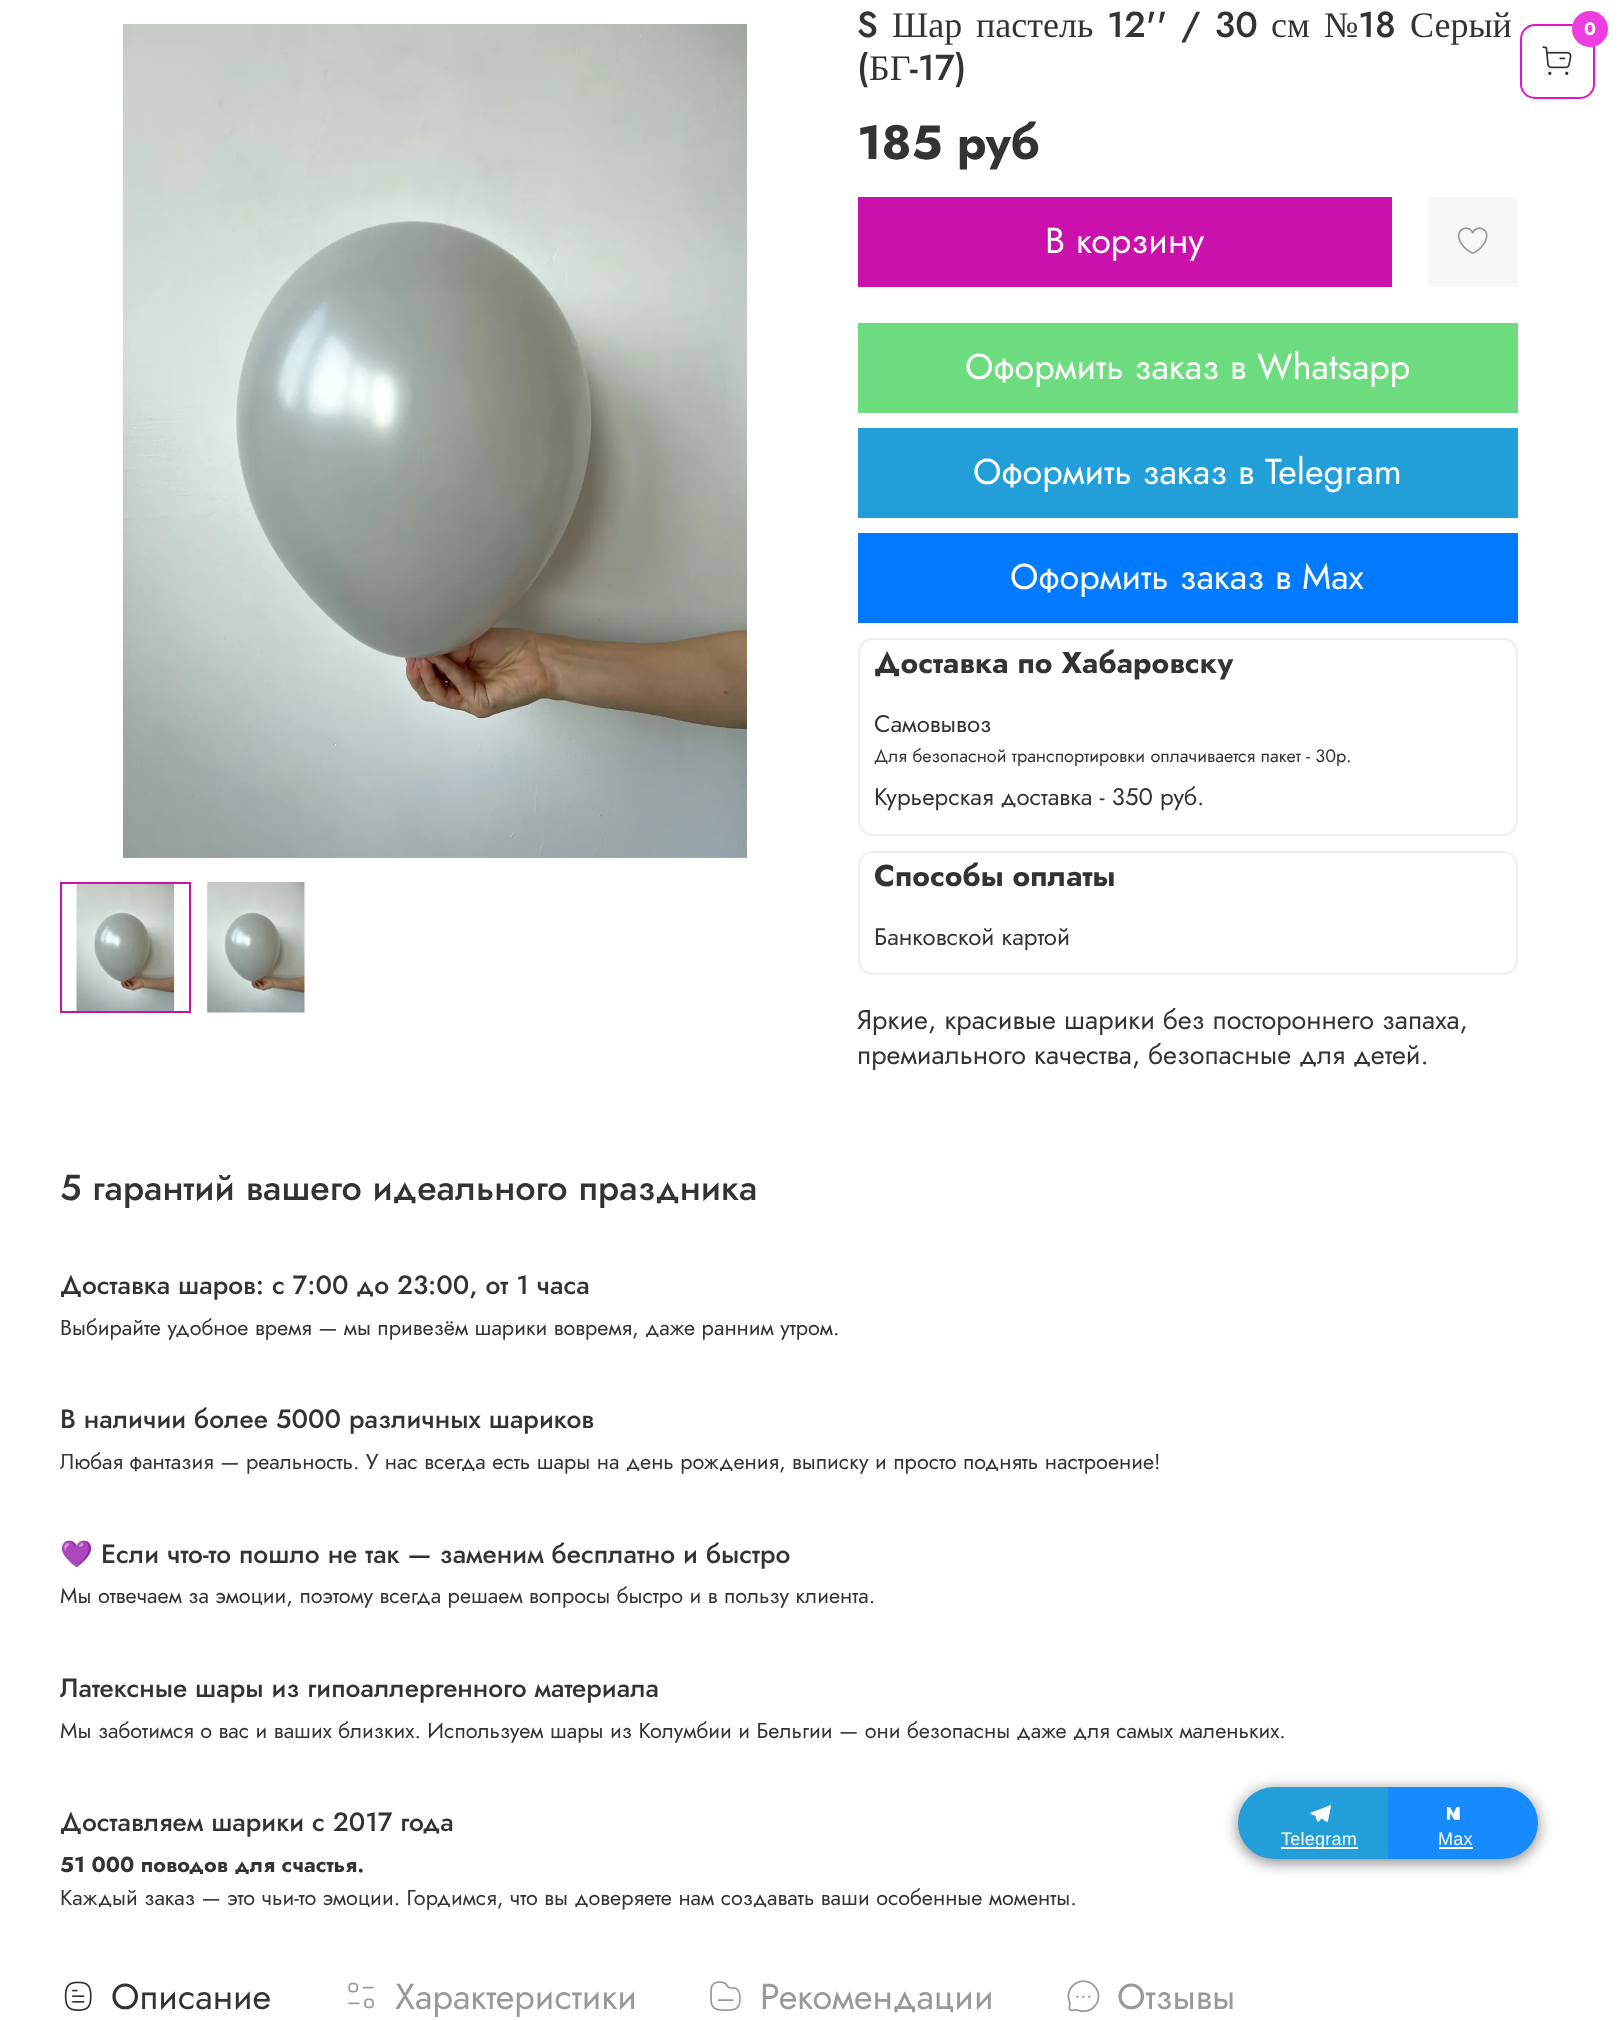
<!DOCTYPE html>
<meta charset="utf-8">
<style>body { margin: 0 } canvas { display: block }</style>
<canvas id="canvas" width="1618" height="2020"></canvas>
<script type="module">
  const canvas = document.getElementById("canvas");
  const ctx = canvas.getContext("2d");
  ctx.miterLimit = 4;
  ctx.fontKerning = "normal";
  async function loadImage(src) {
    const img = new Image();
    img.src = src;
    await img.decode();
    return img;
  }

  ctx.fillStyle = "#ffffff";
  ctx.fillRect(0, 0, 1618, 2020);
  ctx.drawImage(await loadImage("img1.png"), 123, 24, 624, 834);
  ctx.drawImage(await loadImage("img2.png"), 76, 884, 99, 127);
  ctx.strokeStyle = "#cb11ab";
  ctx.lineWidth = 2;
  ctx.strokeRect(61, 883, 129, 129);
  ctx.drawImage(await loadImage("img3.png"), 207, 882, 98, 131);
  ctx.font = "500 36px Jost";
  ctx.fillStyle = "#333333";
  ctx.fillText("S", 857, 37);
  ctx.font = "36px Liberation Serif";
  ctx.fillText("Шар", 892, 37);
  ctx.fillText("пастель", 976, 37);
  ctx.wordSpacing = "3px";
  ctx.font = "500 36px Jost";
  ctx.fillText("12'' / 30", 1107, 37);
  ctx.wordSpacing = "0px";
  ctx.font = "36px Liberation Serif";
  ctx.fillText("см", 1271, 37);
  ctx.fillText("№", 1324, 37);
  ctx.font = "500 36px Jost";
  ctx.fillText("18", 1358, 37);
  ctx.font = "36px Liberation Serif";
  ctx.fillText("Серый", 1410, 37);
  ctx.font = "500 36px Jost";
  ctx.fillText("(", 857, 80);
  ctx.font = "36px Liberation Serif";
  ctx.fillText("БГ", 869, 80);
  ctx.font = "500 36px Jost";
  ctx.fillText("-17)", 910, 80);
  ctx.font = "bold 48px Jost";
  ctx.fillText("185 руб", 857, 159);
  ctx.fillStyle = "#cb11ab";
  ctx.fillRect(858, 197, 534, 90);
  ctx.font = "36px Jost";
  ctx.fillStyle = "#ffffff";
  ctx.fillText("В корзину", 1045, 253);
  ctx.fillStyle = "#f7f7f7";
  ctx.fillRect(1428, 197, 90, 90);
  ctx.drawImage(await loadImage("img4.png"), 1457, 227, 31, 27);
  ctx.fillStyle = "#6ddc7f";
  ctx.fillRect(858, 323, 660, 90);
  ctx.fillStyle = "#ffffff";
  ctx.fillText("Оформить заказ в Whatsapp", 965, 379);
  ctx.fillStyle = "#229ed9";
  ctx.fillRect(858, 428, 660, 90);
  ctx.fillStyle = "#ffffff";
  ctx.fillText("Оформить заказ в Telegram", 973, 484);
  ctx.fillStyle = "#007aff";
  ctx.fillRect(858, 533, 660, 90);
  ctx.fillStyle = "#ffffff";
  ctx.fillText("Оформить заказ в Max", 1010, 589);
  ctx.beginPath();
  ctx.roundRect(859, 639, 658, 196, 14);
  ctx.strokeStyle = "#eeeeee";
  ctx.stroke();
  ctx.font = "bold 30px Jost";
  ctx.fillStyle = "#333333";
  ctx.fillText("Доставка по Хабаровску", 874, 673);
  ctx.font = "24px Jost";
  ctx.fillText("Самовывоз", 874, 732);
  ctx.font = "18px Jost";
  ctx.fillText("Для безопасной транспортировки оплачивается пакет - 30р.", 874, 762);
  ctx.font = "24px Jost";
  ctx.fillText("Курьерская доставка - 350 руб.", 874, 805);
  ctx.beginPath();
  ctx.roundRect(859, 852, 658, 122, 14);
  ctx.stroke();
  ctx.font = "bold 30px Jost";
  ctx.fillText("Способы оплаты", 874, 886);
  ctx.font = "24px Jost";
  ctx.fillText("Банковской картой", 874, 945);
  ctx.font = "27px Jost";
  ctx.fillText("Яркие, красивые шарики без постороннего запаха,", 857, 1029);
  ctx.fillText("премиального качества, безопасные для детей.", 857, 1064);
  ctx.font = "500 36px Jost";
  ctx.fillText("5 гарантий вашего идеального праздника", 60, 1200);
  ctx.font = "500 26.4px Jost";
  ctx.fillText("Доставка шаров: с 7:00 до 23:00, от 1 часа", 60, 1294);
  ctx.font = "21.6px Jost";
  ctx.fillText("Выбирайте удобное время — мы привезём шарики вовремя, даже ранним утром.", 60, 1335);
  ctx.font = "500 26.4px Jost";
  ctx.fillText("В наличии более 5000 различных шариков", 60, 1428);
  ctx.font = "21.6px Jost";
  ctx.fillText("Любая фантазия — реальность. У нас всегда есть шары на день рождения, выписку и просто поднять настроение!", 60, 1469);
  ctx.font = "26.4px Noto Color Emoji";
  ctx.fillText("💜", 60, 1563);
  ctx.font = "500 26.4px Jost";
  ctx.fillText("Если что-то пошло не так — заменим бесплатно и быстро", 101, 1563);
  ctx.font = "21.6px Jost";
  ctx.fillText("Мы отвечаем за эмоции, поэтому всегда решаем вопросы быстро и в пользу клиента.", 60, 1603);
  ctx.font = "500 26.4px Jost";
  ctx.fillText("Латексные шары из гипоаллергенного материала", 60, 1697);
  ctx.font = "21.6px Jost";
  ctx.fillText("Мы заботимся о вас и ваших близких. Используем шары из Колумбии и Бельгии — они безопасны даже для самых маленьких.", 60, 1738);
  ctx.font = "500 26.4px Jost";
  ctx.fillText("Доставляем шарики с 2017 года", 60, 1831);
  ctx.font = "bold 21.6px Jost";
  ctx.fillText("51 000 поводов для счастья.", 60, 1872);
  ctx.font = "21.6px Jost";
  ctx.fillText("Каждый заказ — это чьи-то эмоции. Гордимся, что вы доверяете нам создавать ваши особенные моменты.", 60, 1905);
  ctx.drawImage(await loadImage("img5.png"), 64, 1981, 28, 30);
  ctx.font = "36px Jost";
  ctx.fillText("Описание", 111, 2009);
  ctx.drawImage(await loadImage("img6.png"), 348, 1982, 26, 27);
  ctx.fillStyle = "#999999";
  ctx.fillText("Характеристики", 395, 2009);
  ctx.drawImage(await loadImage("img7.png"), 710, 1981, 31, 30);
  ctx.fillText("Рекомендации", 760, 2009);
  ctx.drawImage(await loadImage("img8.png"), 1067, 1980, 33, 33);
  ctx.fillText("Отзывы", 1117, 2009);
  ctx.beginPath();
  ctx.roundRect(1521, 25, 73, 73, 14);
  ctx.strokeStyle = "#df15d0";
  ctx.stroke();
  ctx.fillStyle = "#ed3de1";
  ctx.beginPath();
  ctx.arc(1590, 29, 18, 0, Math.PI * 2);
  ctx.fill();
  ctx.font = "bold 18px Jost";
  ctx.fillStyle = "#ffffff";
  ctx.fillText("0", 1584, 35);
  ctx.drawImage(await loadImage("img9.png"), 1542, 46, 30, 29);
  ctx.fillStyle = "rgba(0, 0, 0, 0.5)";
  ctx.filter = "blur(7.5px)";
  ctx.beginPath();
  ctx.roundRect(1238, 1790, 300, 72, 36);
  ctx.fill();
  ctx.filter = "none";
  ctx.fillStyle = "#229ed9";
  ctx.beginPath();
  ctx.roundRect(1238, 1787, 150, 72, [36, 0, 0, 36]);
  ctx.fill();
  ctx.drawImage(await loadImage("img10.png"), 1310, 1804, 22, 18);
  ctx.fillStyle = "#ffffff";
  ctx.fillRect(1281, 1847, 77, 2);
  ctx.letterSpacing = "0.25px";
  ctx.font = "18px Liberation Sans";
  ctx.fillText("Telegram", 1281, 1845);
  ctx.fillStyle = "#168aff";
  ctx.beginPath();
  ctx.roundRect(1388, 1787, 150, 72, [0, 36, 36, 0]);
  ctx.fill();
  ctx.drawImage(await loadImage("img11.png"), 1446, 1807, 14, 13);
  ctx.fillStyle = "#ffffff";
  ctx.fillText("Max", 1438, 1845);
  ctx.fillRect(1439, 1847, 34, 2);
</script>
